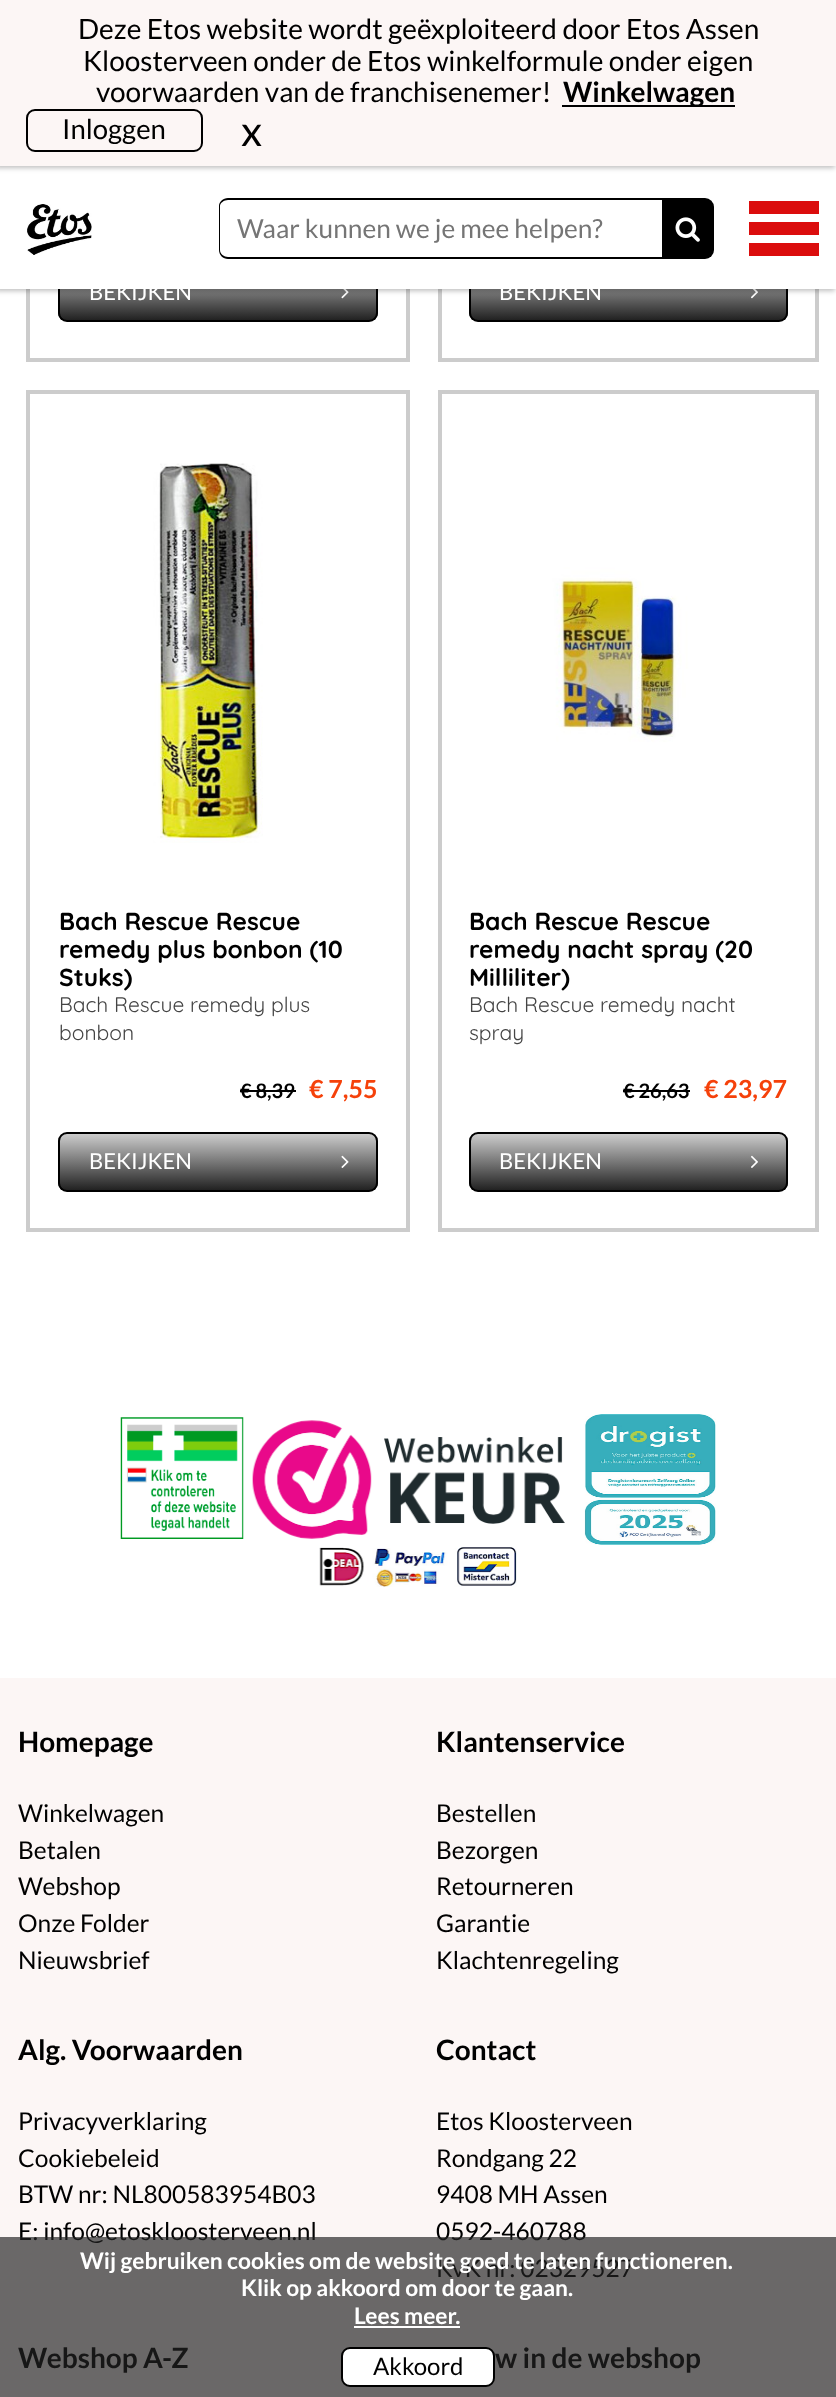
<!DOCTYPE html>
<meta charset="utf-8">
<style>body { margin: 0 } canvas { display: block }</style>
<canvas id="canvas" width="836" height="2397"></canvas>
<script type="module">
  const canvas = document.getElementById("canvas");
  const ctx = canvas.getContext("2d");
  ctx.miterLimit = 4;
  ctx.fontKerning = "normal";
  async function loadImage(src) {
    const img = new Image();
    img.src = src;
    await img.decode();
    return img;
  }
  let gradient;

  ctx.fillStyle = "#ffffff";
  ctx.fillRect(0, 0, 836, 2397);
  ctx.strokeStyle = "#cccccc";
  ctx.lineWidth = 4;
  ctx.strokeRect(28, -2, 380, 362);
  ctx.save();
  ctx.beginPath();
  ctx.roundRect(58, 263, 320, 59, 9);
  ctx.clip();
  gradient = ctx.createLinearGradient(218, 264, 218, 320);
  gradient.addColorStop(0, "#cccccc");
  gradient.addColorStop(1, "#222222");
  ctx.fillStyle = gradient;
  ctx.fillRect(58, 289, 320, 31);
  ctx.restore();
  ctx.beginPath();
  ctx.roundRect(59, 264, 318, 57, 8);
  ctx.strokeStyle = "#000000";
  ctx.lineWidth = 2;
  ctx.stroke();
  ctx.drawImage(await loadImage("img3.png"), 341, 289, 8, 10);
  ctx.strokeStyle = "#cccccc";
  ctx.lineWidth = 4;
  ctx.strokeRect(440, -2, 377, 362);
  ctx.save();
  ctx.beginPath();
  ctx.roundRect(469, 263, 319, 59, 9);
  ctx.clip();
  gradient = ctx.createLinearGradient(628, 264, 628, 320);
  gradient.addColorStop(0, "#cccccc");
  gradient.addColorStop(1, "#222222");
  ctx.fillStyle = gradient;
  ctx.fillRect(469, 289, 319, 31);
  ctx.restore();
  ctx.beginPath();
  ctx.roundRect(470, 264, 317, 57, 8);
  ctx.strokeStyle = "#000000";
  ctx.lineWidth = 2;
  ctx.stroke();
  ctx.drawImage(await loadImage("img4.png"), 751, 289, 7, 10);
  ctx.fillStyle = "rgba(0, 0, 0, 0.25)";
  ctx.filter = "blur(2.5px)";
  ctx.beginPath();
  ctx.rect(-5, 165, 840, 126);
  ctx.fill();
  ctx.filter = "none";
  ctx.fillStyle = "#ffffff";
  ctx.fillRect(0, 166, 836, 123);
  ctx.fillStyle = "rgba(0, 0, 0, 0.25)";
  ctx.filter = "blur(2.5px)";
  ctx.beginPath();
  ctx.rect(-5, -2, 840, 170);
  ctx.fill();
  ctx.filter = "none";
  ctx.fillStyle = "#fcf6f5";
  ctx.fillRect(0, 0, 836, 166);
  ctx.font = "28px Lato";
  ctx.fillStyle = "#000000";
  ctx.fillText("Deze Etos website wordt geëxploiteerd door Etos Assen", 78, 39);
  ctx.fillText("Kloosterveen onder de Etos winkelformule onder eigen", 83, 71);
  ctx.fillText("voorwaarden van de franchisenemer!", 96, 102);
  ctx.fillRect(562, 105, 173, 2);
  ctx.font = "bold 28px Lato";
  ctx.fillText("Winkelwagen", 563, 102);
  ctx.beginPath();
  ctx.roundRect(27, 110, 175, 41, 8);
  ctx.stroke();
  ctx.font = "27.5px Lato";
  ctx.fillText("Inloggen", 62, 139);
  ctx.font = "42px Lato";
  ctx.fillText("x", 241, 146);
  ctx.drawImage(await loadImage("img1.png"), 27, 204, 65, 51);
  ctx.beginPath();
  ctx.moveTo(228, 198);
  ctx.lineTo(662, 198);
  ctx.lineTo(662, 259);
  ctx.lineTo(228, 259);
  ctx.bezierCurveTo(223, 259, 219, 255, 219, 250);
  ctx.lineTo(219, 206);
  ctx.bezierCurveTo(219, 202, 223, 198, 228, 198);
  ctx.closePath();
  ctx.moveTo(228, 200);
  ctx.lineTo(662, 200);
  ctx.lineTo(662, 257);
  ctx.lineTo(228, 257);
  ctx.bezierCurveTo(224, 257, 220, 254, 220, 250);
  ctx.lineTo(220, 206);
  ctx.bezierCurveTo(220, 203, 224, 200, 228, 200);
  ctx.closePath();
  ctx.fill("evenodd");
  ctx.font = "26.25px Lato";
  ctx.fillStyle = "#757575";
  ctx.fillText("Waar kunnen we je mee helpen?", 237, 238);
  ctx.fillStyle = "#000000";
  ctx.beginPath();
  ctx.roundRect(662, 198, 52, 61, [0, 9, 9, 0]);
  ctx.fill();
  ctx.drawImage(await loadImage("img2.png"), 675, 217, 25, 25);
  ctx.fillStyle = "#db0d0d";
  ctx.fillRect(749, 201, 70, 13);
  ctx.fillRect(749, 222, 70, 13);
  ctx.fillRect(749, 243, 70, 13);
  ctx.font = "22px Lato";
  ctx.fillStyle = "#ffffff";
  ctx.fillText("BEKIJKEN", 89, 300);
  ctx.fillText("BEKIJKEN", 499, 300);
  ctx.strokeStyle = "#cccccc";
  ctx.lineWidth = 4;
  ctx.strokeRect(28, 392, 380, 838);
  ctx.drawImage(await loadImage("img5.png"), 101, 463, 234, 380);
  ctx.font = "bold 24.5px Quicksand";
  ctx.fillStyle = "#000000";
  ctx.fillText("Bach Rescue Rescue", 59, 930);
  ctx.fillText("remedy plus bonbon (10", 59, 958);
  ctx.fillText("Stuks)", 59, 986);
  ctx.font = "21px Quicksand";
  ctx.fillStyle = "#444444";
  ctx.fillText("Bach Rescue remedy plus", 59, 1012);
  ctx.fillText("bonbon", 59, 1040);
  ctx.font = "bold 20px Lato";
  ctx.fillStyle = "#000000";
  ctx.fillText("€ 8,39", 240, 1098);
  ctx.fillRect(240, 1090, 56, 2);
  ctx.font = "bold 25px Lato";
  ctx.fillStyle = "#f5410a";
  ctx.fillText("€ 7,55", 309, 1098);
  ctx.save();
  ctx.beginPath();
  ctx.roundRect(58, 1132, 320, 60, 9);
  ctx.clip();
  gradient = ctx.createLinearGradient(218, 1134, 218, 1190);
  gradient.addColorStop(0, "#cccccc");
  gradient.addColorStop(1, "#222222");
  ctx.fillStyle = gradient;
  ctx.fillRect(58, 1134, 320, 56);
  ctx.restore();
  ctx.beginPath();
  ctx.roundRect(59, 1133, 318, 58, 8);
  ctx.strokeStyle = "#000000";
  ctx.lineWidth = 2;
  ctx.stroke();
  ctx.font = "22px Lato";
  ctx.fillStyle = "#ffffff";
  ctx.fillText("BEKIJKEN", 89, 1169);
  ctx.drawImage(await loadImage("img6.png"), 341, 1155, 8, 13);
  ctx.strokeStyle = "#cccccc";
  ctx.lineWidth = 4;
  ctx.strokeRect(440, 392, 377, 838);
  ctx.drawImage(await loadImage("img7.png"), 511, 537, 233, 233);
  ctx.font = "bold 24.5px Quicksand";
  ctx.fillStyle = "#000000";
  ctx.fillText("Bach Rescue Rescue", 469, 930);
  ctx.fillText("remedy nacht spray (20", 469, 958);
  ctx.fillText("Milliliter)", 469, 986);
  ctx.font = "21px Quicksand";
  ctx.fillStyle = "#444444";
  ctx.fillText("Bach Rescue remedy nacht", 469, 1012);
  ctx.fillText("spray", 469, 1040);
  ctx.font = "bold 20px Lato";
  ctx.fillStyle = "#000000";
  ctx.fillText("€ 26,63", 623, 1098);
  ctx.fillRect(623, 1090, 67, 2);
  ctx.font = "bold 25px Lato";
  ctx.fillStyle = "#f5410a";
  ctx.fillText("€ 23,97", 704, 1098);
  ctx.save();
  ctx.beginPath();
  ctx.roundRect(469, 1132, 319, 60, 9);
  ctx.clip();
  gradient = ctx.createLinearGradient(628, 1134, 628, 1190);
  gradient.addColorStop(0, "#cccccc");
  gradient.addColorStop(1, "#222222");
  ctx.fillStyle = gradient;
  ctx.fillRect(469, 1134, 319, 56);
  ctx.restore();
  ctx.beginPath();
  ctx.roundRect(470, 1133, 317, 58, 8);
  ctx.strokeStyle = "#000000";
  ctx.lineWidth = 2;
  ctx.stroke();
  ctx.font = "22px Lato";
  ctx.fillStyle = "#ffffff";
  ctx.fillText("BEKIJKEN", 499, 1169);
  ctx.drawImage(await loadImage("img8.png"), 751, 1155, 7, 13);
  ctx.drawImage(await loadImage("img9.png"), 120, 1417, 124, 122);
  ctx.drawImage(await loadImage("img10.png"), 252, 1420, 313, 119);
  ctx.drawImage(await loadImage("img11.png"), 584, 1414, 132, 131);
  ctx.drawImage(await loadImage("img12.png"), 319, 1547, 198, 40);
  ctx.fillStyle = "#fcf6f5";
  ctx.fillRect(0, 1678, 836, 719);
  ctx.font = "bold 28px Lato";
  ctx.fillStyle = "#000000";
  ctx.fillText("Homepage", 18, 1752);
  ctx.font = "24.5px Lato";
  ctx.fillText("Winkelwagen", 18, 1822);
  ctx.fillText("Betalen", 18, 1859);
  ctx.fillText("Webshop", 18, 1895);
  ctx.fillText("Onze Folder", 18, 1932);
  ctx.fillText("Nieuwsbrief", 18, 1969);
  ctx.font = "bold 28px Lato";
  ctx.fillText("Klantenservice", 436, 1752);
  ctx.font = "24.5px Lato";
  ctx.fillText("Bestellen", 436, 1822);
  ctx.fillText("Bezorgen", 436, 1859);
  ctx.fillText("Retourneren", 436, 1895);
  ctx.fillText("Garantie", 436, 1932);
  ctx.fillText("Klachtenregeling", 436, 1969);
  ctx.font = "bold 28px Lato";
  ctx.fillText("Alg. Voorwaarden", 18, 2060);
  ctx.font = "24.5px Lato";
  ctx.fillText("Privacyverklaring", 18, 2130);
  ctx.fillText("Cookiebeleid", 18, 2167);
  ctx.fillText("BTW nr: NL800583954B03", 18, 2203);
  ctx.fillText("E: info@etoskloosterveen.nl", 18, 2240);
  ctx.font = "bold 28px Lato";
  ctx.fillText("Contact", 436, 2060);
  ctx.font = "24.5px Lato";
  ctx.fillText("Etos Kloosterveen", 436, 2130);
  ctx.fillText("Rondgang 22", 436, 2167);
  ctx.fillText("9408 MH Assen", 436, 2203);
  ctx.fillText("0592-460788", 436, 2240);
  ctx.fillText("KvK nr: 02329527", 436, 2277);
  ctx.font = "bold 28px Lato";
  ctx.fillText("Webshop A-Z", 18, 2368);
  ctx.fillText("w in de webshop", 495, 2368);
  ctx.fillStyle = "rgba(34, 34, 34, 0.67)";
  ctx.fillRect(0, 2237, 836, 160);
  ctx.font = "bold 22.75px Lato";
  ctx.fillStyle = "#ffffff";
  ctx.fillText("Wij gebruiken cookies om de website goed te laten functioneren.", 80, 2269);
  ctx.fillText("Klik op akkoord om door te gaan.", 241, 2296);
  ctx.fillText("Lees meer.", 354, 2324);
  ctx.fillRect(354, 2326, 106, 2);
  ctx.beginPath();
  ctx.roundRect(342, 2348, 152, 38, 8);
  ctx.fill();
  ctx.stroke();
  ctx.font = "24px Lato";
  ctx.fillStyle = "#000000";
  ctx.fillText("Akkoord", 373, 2375);
</script>
